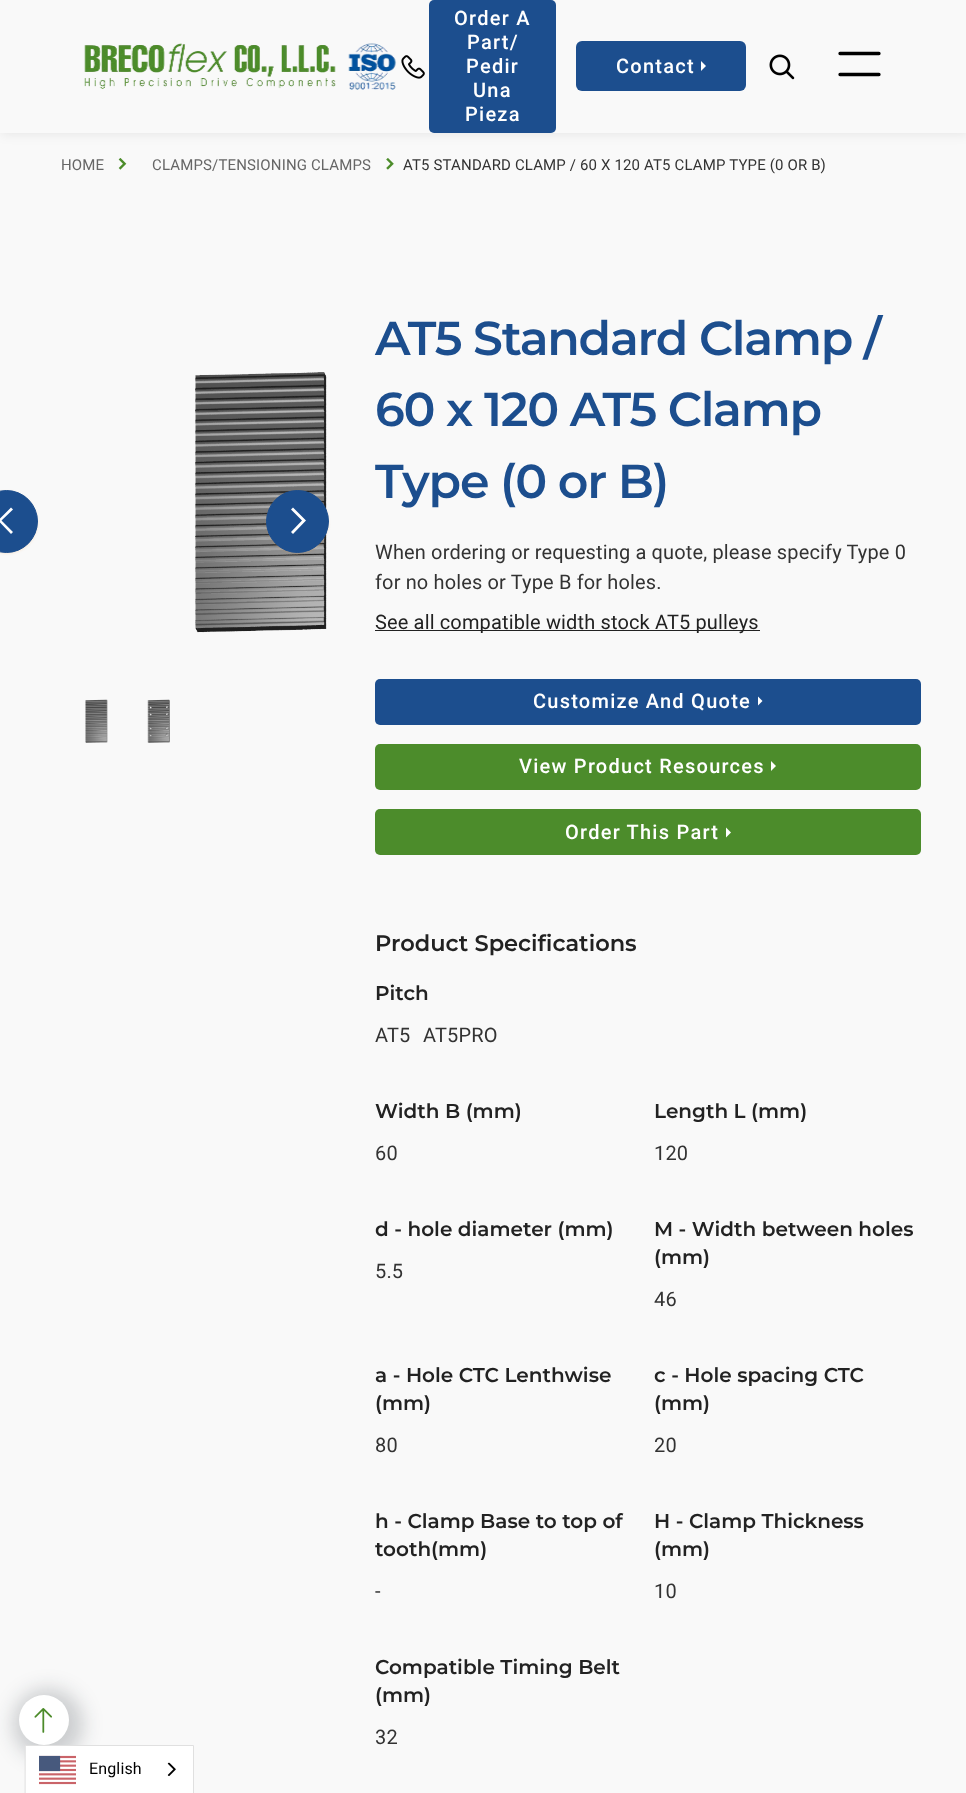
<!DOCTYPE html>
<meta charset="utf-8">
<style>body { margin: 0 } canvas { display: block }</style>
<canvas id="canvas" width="966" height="1793"></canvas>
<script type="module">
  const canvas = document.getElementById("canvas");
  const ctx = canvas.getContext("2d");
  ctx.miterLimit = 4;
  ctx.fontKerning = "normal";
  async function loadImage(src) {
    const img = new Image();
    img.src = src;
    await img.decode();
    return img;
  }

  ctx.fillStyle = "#f9f9f9";
  ctx.fillRect(0, 0, 966, 1793);
  ctx.fillStyle = "rgba(0, 0, 0, 0.08)";
  ctx.filter = "blur(6px)";
  ctx.beginPath();
  ctx.rect(1, 1, 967, 133);
  ctx.fill();
  ctx.filter = "none";
  ctx.fillStyle = "#f9f9f9";
  ctx.fillRect(0, 0, 966, 133);
  ctx.drawImage(await loadImage("img1.png"), 84, 43, 252, 46);
  ctx.drawImage(await loadImage("img2.png"), 348, 43, 49, 47);
  ctx.drawImage(await loadImage("img3.png"), 401, 55, 24, 24);
  ctx.fillStyle = "#1c4e8e";
  ctx.beginPath();
  ctx.roundRect(429, 0, 127, 133, 5);
  ctx.fill();
  ctx.letterSpacing = "1.25px";
  ctx.font = "500 20px Roboto";
  ctx.fillStyle = "#ffffff";
  ctx.fillText("Order A", 454, 25);
  ctx.fillText("Part/", 467, 49);
  ctx.fillText("Pedir", 466, 73);
  ctx.fillText("Una", 473, 97);
  ctx.fillText("Pieza", 465, 121);
  ctx.fillStyle = "#1c4e8e";
  ctx.beginPath();
  ctx.roundRect(576, 41, 170, 50, 6);
  ctx.fill();
  ctx.fillStyle = "#ffffff";
  ctx.fillText("Contact", 616, 73);
  ctx.beginPath();
  ctx.moveTo(706, 66);
  ctx.lineTo(701, 71);
  ctx.lineTo(701, 61);
  ctx.closePath();
  ctx.fill();
  ctx.drawImage(await loadImage("img4.png"), 769, 54, 26, 26);
  ctx.beginPath();
  ctx.moveTo(840, 53.5);
  ctx.lineTo(879, 53.5);
  ctx.moveTo(840, 74.5);
  ctx.lineTo(879, 74.5);
  ctx.strokeStyle = "#000000";
  ctx.lineWidth = 3.3;
  ctx.lineCap = "round";
  ctx.lineJoin = "round";
  ctx.stroke();
  ctx.drawImage(await loadImage("img5.png"), 118, 158, 9, 12);
  ctx.letterSpacing = "0.15px";
  ctx.font = "15px Roboto";
  ctx.fillStyle = "#666666";
  ctx.fillText("HOME", 61, 170);
  ctx.drawImage(await loadImage("img6.png"), 386, 158, 8, 12);
  ctx.fillText("CLAMPS/TENSIONING CLAMPS", 152, 170);
  ctx.fillStyle = "#333333";
  ctx.fillText("AT5 STANDARD CLAMP / 60 X 120 AT5 CLAMP TYPE (0 OR B)", 403, 170);
  ctx.fillStyle = "rgba(16, 27, 34, 0.2)";
  ctx.filter = "blur(10px)";
  ctx.beginPath();
  ctx.roundRect(13, 1689, 70, 70, 35);
  ctx.fill();
  ctx.filter = "none";
  ctx.fillStyle = "#ffffff";
  ctx.beginPath();
  ctx.arc(44, 1720, 25, 0, Math.PI * 2);
  ctx.fill();
  ctx.drawImage(await loadImage("img7.png"), 34, 1708, 18, 25);
  ctx.fillStyle = "rgba(245, 153, 51, 0.15)";
  ctx.filter = "blur(1px)";
  ctx.beginPath();
  ctx.roundRect(-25, 491, 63, 63, 31.5);
  ctx.fill();
  ctx.filter = "none";
  ctx.fillStyle = "#1c4e8e";
  ctx.beginPath();
  ctx.arc(6.5, 521.5, 31, 0, Math.PI * 2);
  ctx.fill();
  ctx.strokeStyle = "#1c4e8e";
  ctx.lineWidth = 1;
  ctx.stroke();
  ctx.fillStyle = "#ffffff";
  ctx.beginPath();
  ctx.moveTo(-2, 520.5);
  ctx.lineTo(11, 507.5);
  ctx.lineTo(13, 509.5);
  ctx.lineTo(1.5, 520.5);
  ctx.lineTo(13, 532);
  ctx.lineTo(11, 534);
  ctx.closePath();
  ctx.fill();
  ctx.drawImage(await loadImage("img8.png"), 195, 372, 132, 261);
  ctx.fillStyle = "rgba(245, 153, 51, 0.15)";
  ctx.filter = "blur(1px)";
  ctx.beginPath();
  ctx.roundRect(266, 491, 63, 63, 31.5);
  ctx.fill();
  ctx.filter = "none";
  ctx.fillStyle = "#1c4e8e";
  ctx.beginPath();
  ctx.arc(297.5, 521.5, 31, 0, Math.PI * 2);
  ctx.fill();
  ctx.stroke();
  ctx.fillStyle = "#ffffff";
  ctx.beginPath();
  ctx.moveTo(306, 520.5);
  ctx.lineTo(293, 507.5);
  ctx.lineTo(291, 509.5);
  ctx.lineTo(302, 520.5);
  ctx.lineTo(291, 532);
  ctx.lineTo(293, 534);
  ctx.closePath();
  ctx.fill();
  ctx.drawImage(await loadImage("img9.png"), 85, 699, 23, 44);
  ctx.drawImage(await loadImage("img10.png"), 147, 699, 23, 44);
  ctx.letterSpacing = "-1.25px";
  ctx.font = "600 47.5px Montserrat";
  ctx.fillStyle = "#1c4e8e";
  ctx.fillText("AT5 Standard Clamp /", 375, 355);
  ctx.fillText("60 x 120 AT5 Clamp", 375, 426);
  ctx.fillText("Type (0 or B)", 375, 498);
  ctx.letterSpacing = "0.15px";
  ctx.font = "20px Roboto";
  ctx.fillStyle = "#333333";
  ctx.fillText("When ordering or requesting a quote, please specify Type 0", 375, 559);
  ctx.fillText("for no holes or Type B for holes.", 375, 589);
  ctx.fillStyle = "#222222";
  ctx.fillRect(375, 630, 385, 1);
  ctx.fillText("See all compatible width stock AT5 pulleys", 375, 629);
  ctx.fillStyle = "#1c4e8e";
  ctx.beginPath();
  ctx.roundRect(375, 679, 546, 46, 5);
  ctx.fill();
  ctx.letterSpacing = "1.25px";
  ctx.font = "500 20px Roboto";
  ctx.fillStyle = "#ffffff";
  ctx.fillText("Customize And Quote", 533, 708);
  ctx.save();
  ctx.beginPath();
  ctx.rect(758, 696, 5, 10);
  ctx.clip();
  ctx.beginPath();
  ctx.moveTo(762.5, 701);
  ctx.lineTo(757.5, 706);
  ctx.lineTo(757.5, 696);
  ctx.closePath();
  ctx.fill();
  ctx.restore();
  ctx.fillStyle = "#4c8c2b";
  ctx.beginPath();
  ctx.roundRect(375, 744, 546, 46, 5);
  ctx.fill();
  ctx.fillStyle = "#ffffff";
  ctx.fillText("View Product Resources", 519, 773);
  ctx.beginPath();
  ctx.moveTo(776, 766);
  ctx.lineTo(771, 771);
  ctx.lineTo(771, 761);
  ctx.closePath();
  ctx.fill();
  ctx.fillStyle = "#4c8c2b";
  ctx.beginPath();
  ctx.roundRect(375, 809, 546, 46, 5);
  ctx.fill();
  ctx.fillStyle = "#ffffff";
  ctx.fillText("Order This Part", 565, 839);
  ctx.beginPath();
  ctx.moveTo(731, 832.5);
  ctx.lineTo(726, 837.5);
  ctx.lineTo(726, 827.5);
  ctx.closePath();
  ctx.fill();
  ctx.letterSpacing = "0px";
  ctx.font = "600 22.5px Montserrat";
  ctx.fillStyle = "#222222";
  ctx.fillText("Product Specifications", 375, 951);
  ctx.font = "600 20px Montserrat";
  ctx.fillText("Pitch", 375, 1000);
  ctx.letterSpacing = "0.15px";
  ctx.font = "20px Roboto";
  ctx.fillStyle = "#333333";
  ctx.fillText("AT5", 375, 1042);
  ctx.fillText("AT5PRO", 423, 1042);
  ctx.letterSpacing = "0px";
  ctx.font = "600 20px Montserrat";
  ctx.fillStyle = "#222222";
  ctx.fillText("Width B (mm)", 375, 1118);
  ctx.letterSpacing = "0.15px";
  ctx.font = "20px Roboto";
  ctx.fillStyle = "#333333";
  ctx.fillText("60", 375, 1160);
  ctx.letterSpacing = "0px";
  ctx.font = "600 20px Montserrat";
  ctx.fillStyle = "#222222";
  ctx.fillText("Length L (mm)", 654, 1118);
  ctx.letterSpacing = "0.15px";
  ctx.font = "20px Roboto";
  ctx.fillStyle = "#333333";
  ctx.fillText("120", 654, 1160);
  ctx.letterSpacing = "0px";
  ctx.font = "600 20px Montserrat";
  ctx.fillStyle = "#222222";
  ctx.fillText("d - hole diameter (mm)", 375, 1236);
  ctx.letterSpacing = "0.15px";
  ctx.font = "20px Roboto";
  ctx.fillStyle = "#333333";
  ctx.fillText("5.5", 375, 1278);
  ctx.letterSpacing = "0px";
  ctx.font = "600 20px Montserrat";
  ctx.fillStyle = "#222222";
  ctx.fillText("M - Width between holes", 654, 1236);
  ctx.fillText("(mm)", 654, 1264);
  ctx.letterSpacing = "0.15px";
  ctx.font = "20px Roboto";
  ctx.fillStyle = "#333333";
  ctx.fillText("46", 654, 1306);
  ctx.letterSpacing = "0px";
  ctx.font = "600 20px Montserrat";
  ctx.fillStyle = "#222222";
  ctx.fillText("a - Hole CTC Lenthwise", 375, 1382);
  ctx.fillText("(mm)", 375, 1410);
  ctx.letterSpacing = "0.15px";
  ctx.font = "20px Roboto";
  ctx.fillStyle = "#333333";
  ctx.fillText("80", 375, 1452);
  ctx.letterSpacing = "0px";
  ctx.font = "600 20px Montserrat";
  ctx.fillStyle = "#222222";
  ctx.fillText("c - Hole spacing CTC", 654, 1382);
  ctx.fillText("(mm)", 654, 1410);
  ctx.letterSpacing = "0.15px";
  ctx.font = "20px Roboto";
  ctx.fillStyle = "#333333";
  ctx.fillText("20", 654, 1452);
  ctx.letterSpacing = "0px";
  ctx.font = "600 20px Montserrat";
  ctx.fillStyle = "#222222";
  ctx.fillText("h - Clamp Base to top of", 375, 1528);
  ctx.fillText("tooth(mm)", 375, 1556);
  ctx.letterSpacing = "0.15px";
  ctx.font = "20px Roboto";
  ctx.fillStyle = "#333333";
  ctx.fillText("-", 375, 1598);
  ctx.letterSpacing = "0px";
  ctx.font = "600 20px Montserrat";
  ctx.fillStyle = "#222222";
  ctx.fillText("H - Clamp Thickness", 654, 1528);
  ctx.fillText("(mm)", 654, 1556);
  ctx.letterSpacing = "0.15px";
  ctx.font = "20px Roboto";
  ctx.fillStyle = "#333333";
  ctx.fillText("10", 654, 1598);
  ctx.letterSpacing = "0px";
  ctx.font = "600 20px Montserrat";
  ctx.fillStyle = "#222222";
  ctx.fillText("Compatible Timing Belt", 375, 1674);
  ctx.fillText("(mm)", 375, 1702);
  ctx.letterSpacing = "0.15px";
  ctx.font = "20px Roboto";
  ctx.fillStyle = "#333333";
  ctx.fillText("32", 375, 1744);
  ctx.fillStyle = "#ffffff";
  ctx.beginPath();
  ctx.rect(25.5, 1745.5, 168, 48);
  ctx.fill();
  ctx.strokeStyle = "#e0e0e0";
  ctx.lineJoin = "miter";
  ctx.stroke();
  ctx.drawImage(await loadImage("img11.png"), 39, 1755, 37, 30);
  ctx.font = "16px Roboto";
  ctx.fillStyle = "#000000";
  ctx.fillText("English", 89, 1774);
  ctx.drawImage(await loadImage("img12.png"), 167, 1762, 9, 14);
</script>
